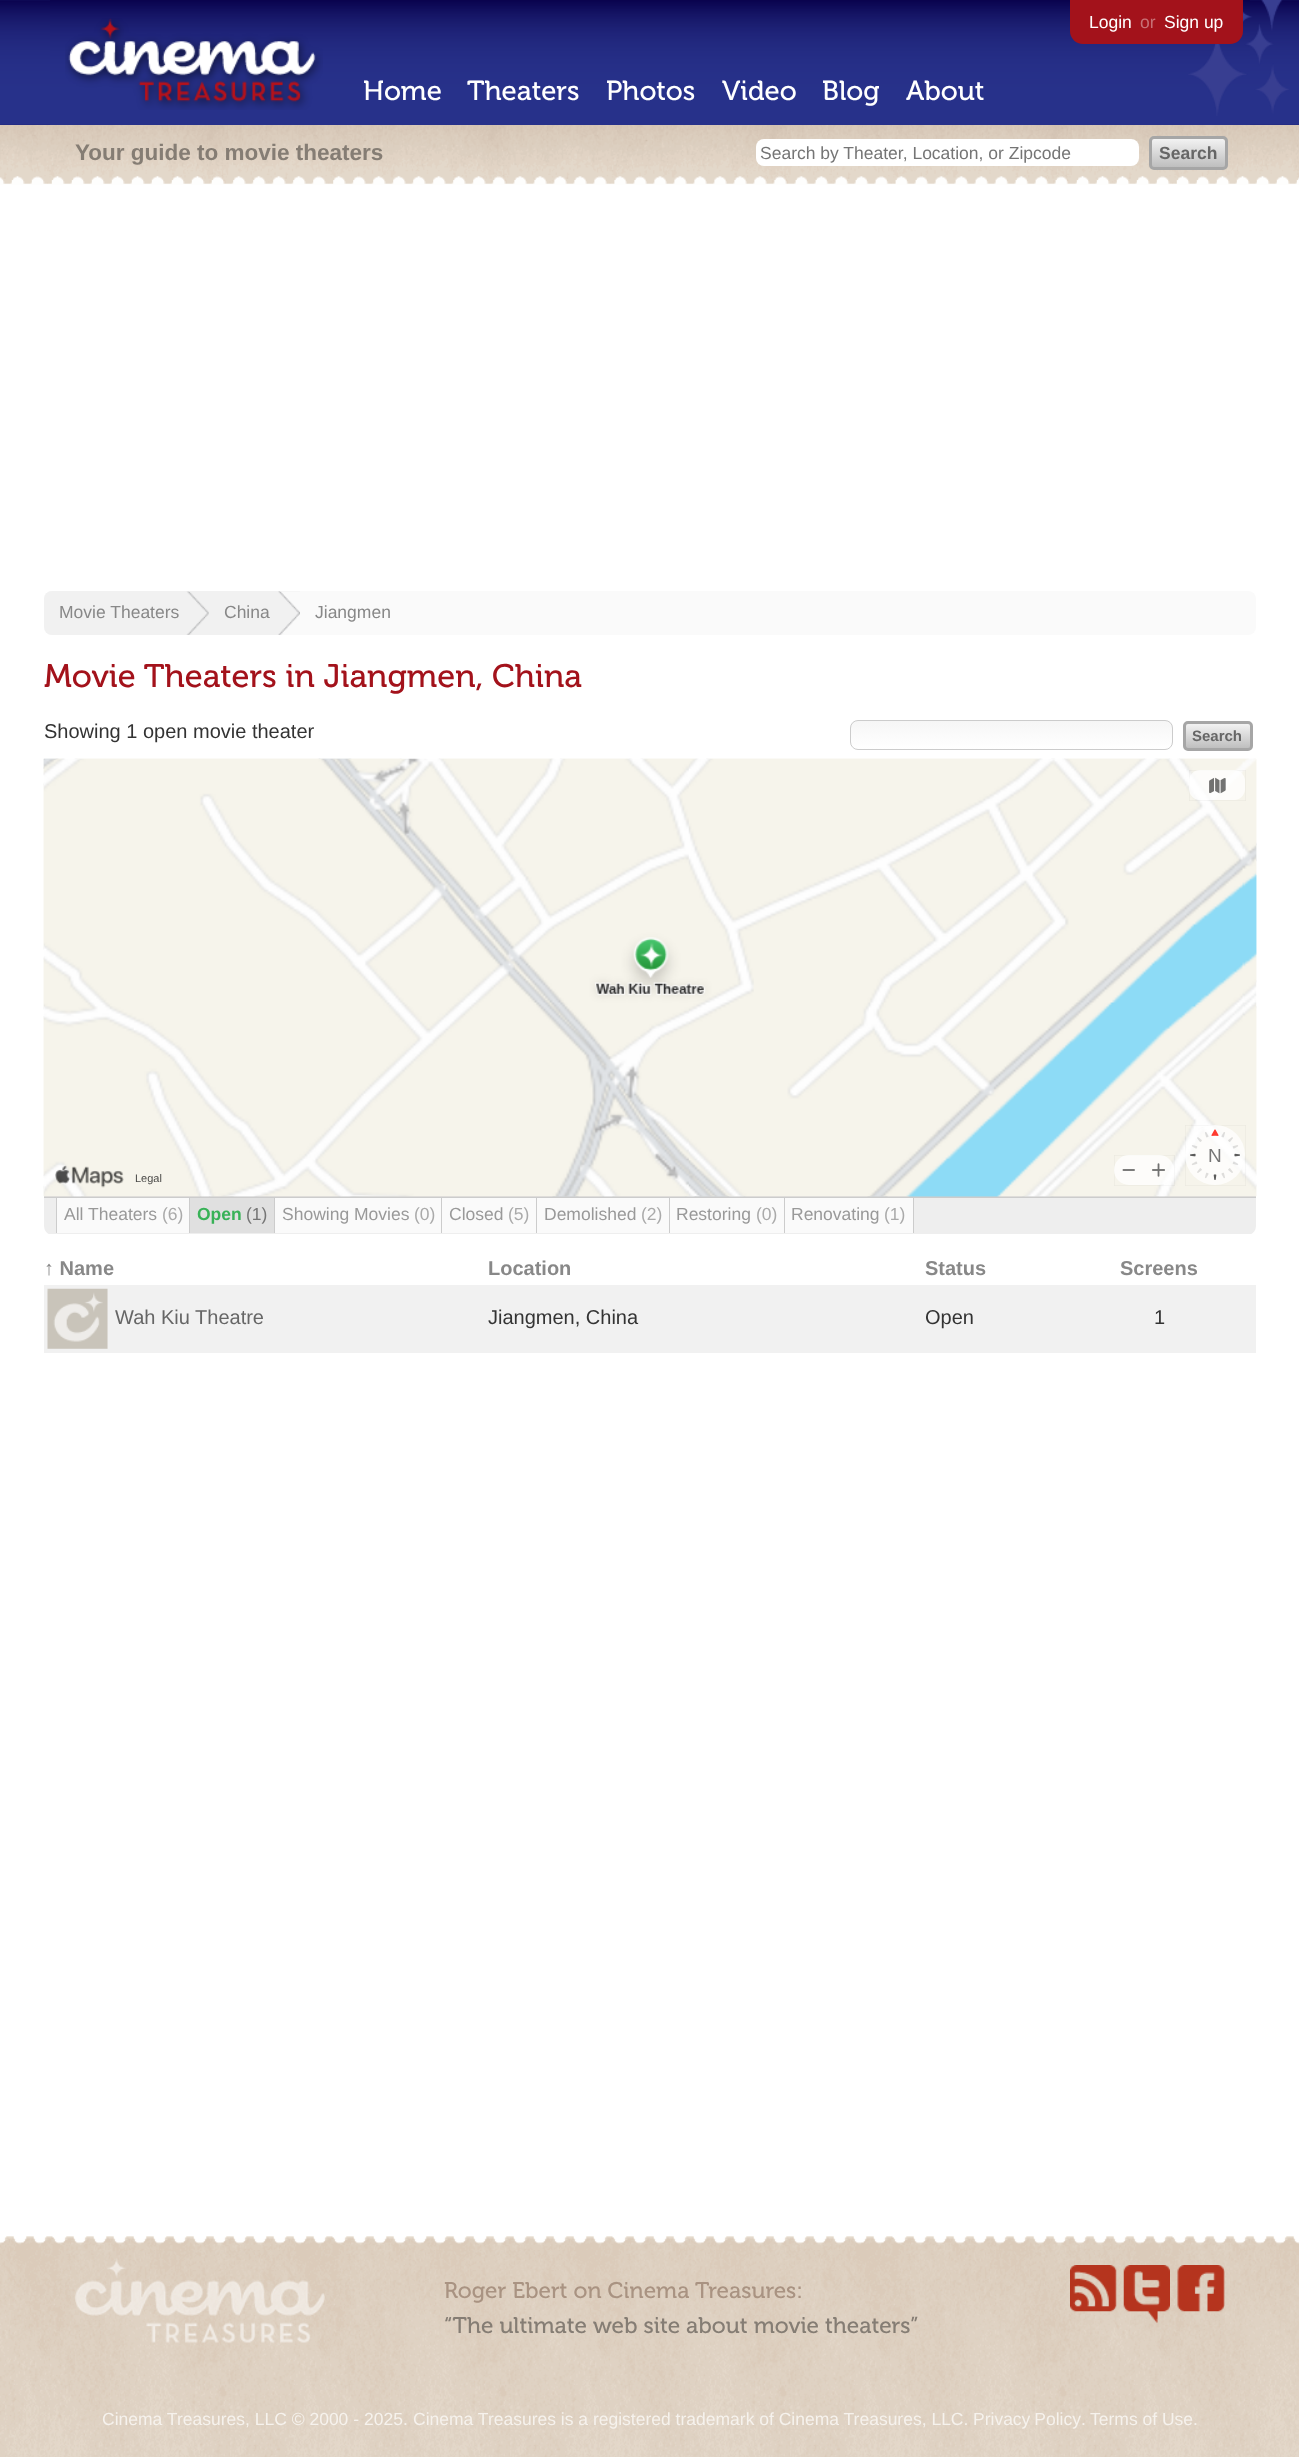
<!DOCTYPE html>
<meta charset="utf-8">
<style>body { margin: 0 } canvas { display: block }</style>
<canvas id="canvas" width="1299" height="2457"></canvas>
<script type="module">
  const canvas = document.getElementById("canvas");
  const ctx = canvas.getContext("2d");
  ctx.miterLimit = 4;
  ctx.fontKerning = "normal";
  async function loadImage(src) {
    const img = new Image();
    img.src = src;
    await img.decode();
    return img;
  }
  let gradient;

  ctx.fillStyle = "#ffffff";
  ctx.fillRect(0, 0, 1299, 2457);
  ctx.drawImage(await loadImage("img1.png"), 0, 0, 1299, 125);
  ctx.drawImage(await loadImage("img2.png"), 50, 0, 1200, 125);
  ctx.drawImage(await loadImage("img3.png"), 65, 18, 258, 92);
  ctx.font = "27.5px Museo";
  ctx.fillText("Home", 363, 100);
  ctx.fillText("Theaters", 467, 100);
  ctx.fillText("Photos", 606, 100);
  ctx.fillText("Video", 722, 100);
  ctx.fillText("Blog", 822, 100);
  ctx.fillText("About", 906, 100);
  ctx.drawImage(await loadImage("img4.png"), 1188, 0, 101, 116);
  ctx.fillStyle = "#a3121b";
  ctx.beginPath();
  ctx.roundRect(1070, 0, 173, 44, [0, 0, 13, 13]);
  ctx.fill();
  ctx.font = "17.5px Liberation Sans";
  ctx.fillStyle = "#ffffff";
  ctx.fillText("Login", 1089, 28);
  ctx.fillStyle = "#c87176";
  ctx.fillText("or", 1140, 28);
  ctx.fillStyle = "#ffffff";
  ctx.fillText("Sign up", 1164, 28);
  ctx.drawImage(await loadImage("img5.png"), 0, 125, 1299, 60);
  ctx.font = "bold 22.5px Liberation Sans";
  ctx.fillStyle = "#857d74";
  ctx.fillText("Your guide to movie theaters", 75, 160);
  ctx.fillStyle = "#ffffff";
  ctx.beginPath();
  ctx.roundRect(756, 139, 383, 27, 8);
  ctx.fill();
  ctx.font = "17.5px Liberation Sans";
  ctx.fillStyle = "#757575";
  ctx.fillText("Search by Theater, Location, or Zipcode", 760, 159);
  gradient = ctx.createLinearGradient(1188, 139, 1188, 168);
  gradient.addColorStop(0, "#f2f2f2");
  gradient.addColorStop(1, "#bdbdbd");
  ctx.fillStyle = gradient;
  ctx.beginPath();
  ctx.roundRect(1151, 139, 74, 29, 2.5);
  ctx.fill();
  ctx.beginPath();
  ctx.roundRect(1150.5, 137.5, 76, 31, 3.5);
  ctx.strokeStyle = "#a6a6a6";
  ctx.lineWidth = 3;
  ctx.stroke();
  ctx.font = "bold 17.5px Liberation Sans";
  ctx.fillStyle = "#666666";
  ctx.fillText("Search", 1159, 159);
  ctx.fillStyle = "#fafafa";
  ctx.beginPath();
  ctx.roundRect(44, 591, 1212, 44, 8);
  ctx.fill();
  ctx.fillStyle = "#f1f1f1";
  ctx.beginPath();
  ctx.roundRect(44, 591, 165, 44, [8, 0, 0, 8]);
  ctx.fill();
  ctx.drawImage(await loadImage("img6.png"), 186, 591, 23, 44);
  ctx.font = "17.5px Liberation Sans";
  ctx.fillStyle = "#888888";
  ctx.fillText("Movie Theaters", 59, 618);
  ctx.fillStyle = "#f1f1f1";
  ctx.fillRect(209, 591, 91, 44);
  ctx.drawImage(await loadImage("img7.png"), 278, 591, 22, 44);
  ctx.fillStyle = "#888888";
  ctx.fillText("China", 224, 618);
  ctx.fillText("Jiangmen", 315, 618);
  ctx.font = "32.5px Museo";
  ctx.fillStyle = "#a3121b";
  ctx.fillText("Movie Theaters in Jiangmen, China", 44, 687);
  ctx.font = "20px Liberation Sans";
  ctx.fillStyle = "#333333";
  ctx.fillText("Showing 1 open movie theater", 44, 738);
  ctx.save();
  ctx.beginPath();
  ctx.roundRect(850, 720, 323, 30, 8);
  ctx.clip();
  gradient = ctx.createLinearGradient(1011, 721, 1011, 749);
  gradient.addColorStop(0, "#f6f6f6");
  gradient.addColorStop(1, "#ffffff");
  ctx.fillStyle = gradient;
  ctx.fillRect(850, 721, 323, 28);
  ctx.restore();
  ctx.beginPath();
  ctx.roundRect(850.5, 720.5, 322, 29, 7.5);
  ctx.strokeStyle = "#cccccc";
  ctx.lineWidth = 1;
  ctx.stroke();
  gradient = ctx.createLinearGradient(1218, 724, 1218, 749);
  gradient.addColorStop(0, "#f2f2f2");
  gradient.addColorStop(1, "#bdbdbd");
  ctx.fillStyle = gradient;
  ctx.beginPath();
  ctx.roundRect(1185, 724, 65, 25, 2.5);
  ctx.fill();
  ctx.beginPath();
  ctx.roundRect(1184.5, 722.5, 67, 27, 3.5);
  ctx.strokeStyle = "#a6a6a6";
  ctx.lineWidth = 3;
  ctx.stroke();
  ctx.font = "bold 15px Liberation Sans";
  ctx.fillStyle = "#666666";
  ctx.fillText("Search", 1192, 741);
  ctx.fillStyle = "#eeeeee";
  ctx.beginPath();
  ctx.roundRect(44, 1196, 1212, 38, [0, 0, 8, 8]);
  ctx.fill();
  ctx.fillStyle = "#cccccc";
  ctx.fillRect(44, 1196, 1212, 2);
  ctx.drawImage(await loadImage("img8.png"), 43, 758, 1214, 439);
  ctx.drawImage(await loadImage("img9.png"), 43, 758, 1214, 439);
  ctx.strokeStyle = "rgba(0, 0, 0, 0.05)";
  ctx.lineWidth = 0.6;
  ctx.strokeRect(1189.3, 770.3, 56.4, 30.4);
  ctx.fillStyle = "rgba(255, 255, 255, 0.75)";
  ctx.beginPath();
  ctx.roundRect(1189, 770, 56, 30, 11);
  ctx.fill();
  ctx.drawImage(await loadImage("img10.png"), 1209, 777, 17, 17);
  ctx.strokeRect(1114.3, 1155.3, 60.4, 30.4);
  ctx.beginPath();
  ctx.roundRect(1114, 1155, 60, 30, 15);
  ctx.fill();
  ctx.drawImage(await loadImage("img11.png"), 1122, 1169, 13, 2);
  ctx.drawImage(await loadImage("img12.png"), 1152, 1163, 13, 14);
  ctx.strokeRect(1185.3, 1125.3, 60.4, 60.4);
  ctx.beginPath();
  ctx.arc(1215, 1155, 30, 0, Math.PI * 2);
  ctx.fill();
  ctx.drawImage(await loadImage("img13.png"), 1190, 1129, 50, 51);
  ctx.font = "19px Liberation Sans";
  ctx.fillStyle = "#757575";
  ctx.fillText("N", 1208, 1162);
  ctx.drawImage(await loadImage("img14.png"), 55, 1165, 69, 23);
  ctx.font = "11px Liberation Sans";
  ctx.fillStyle = "#4a4947";
  ctx.fillText("Legal", 135, 1182);
  ctx.fillStyle = "#eeeeee";
  ctx.beginPath();
  ctx.moveTo(1251, 1234);
  ctx.bezierCurveTo(1254, 1233, 1256, 1229, 1256, 1226);
  ctx.bezierCurveTo(1256, 1230, 1253, 1232, 1249, 1232);
  ctx.lineTo(51, 1232);
  ctx.bezierCurveTo(47, 1232, 44, 1230, 44, 1226);
  ctx.bezierCurveTo(44, 1229, 46, 1233, 49, 1234);
  ctx.closePath();
  ctx.fill();
  ctx.fillStyle = "#fafafa";
  ctx.fillRect(57, 1198, 132, 35);
  ctx.fillStyle = "#cccccc";
  ctx.fillRect(189, 1198, 1, 35);
  ctx.fillRect(56, 1198, 1, 35);
  ctx.font = "17.5px Liberation Sans";
  ctx.fillStyle = "#999999";
  ctx.fillText("All Theaters", 64, 1220);
  ctx.fillStyle = "#aaaaaa";
  ctx.fillText("(6)", 162, 1220);
  ctx.fillStyle = "#e0e0e0";
  ctx.fillRect(190, 1198, 84, 35);
  ctx.fillStyle = "#cccccc";
  ctx.fillRect(274, 1198, 1, 35);
  ctx.font = "bold 17.5px Liberation Sans";
  ctx.fillStyle = "#38b257";
  ctx.fillText("Open", 197, 1220);
  ctx.font = "17.5px Liberation Sans";
  ctx.fillStyle = "#757575";
  ctx.fillText("(1)", 246, 1220);
  ctx.fillStyle = "#fafafa";
  ctx.fillRect(275, 1198, 394, 35);
  ctx.fillStyle = "#cccccc";
  ctx.fillRect(441, 1198, 1, 35);
  ctx.fillStyle = "#999999";
  ctx.fillText("Showing Movies", 282, 1220);
  ctx.fillStyle = "#aaaaaa";
  ctx.fillText("(0)", 414, 1220);
  ctx.fillStyle = "#cccccc";
  ctx.fillRect(536, 1198, 1, 35);
  ctx.fillStyle = "#999999";
  ctx.fillText("Closed", 449, 1220);
  ctx.fillStyle = "#aaaaaa";
  ctx.fillText("(5)", 508, 1220);
  ctx.fillStyle = "#cccccc";
  ctx.fillRect(669, 1198, 1, 35);
  ctx.fillStyle = "#999999";
  ctx.fillText("Demolished", 544, 1220);
  ctx.fillStyle = "#aaaaaa";
  ctx.fillText("(2)", 641, 1220);
  ctx.fillStyle = "#fafafa";
  ctx.fillRect(670, 1198, 114, 35);
  ctx.fillStyle = "#cccccc";
  ctx.fillRect(784, 1198, 1, 35);
  ctx.fillStyle = "#999999";
  ctx.fillText("Restoring", 676, 1220);
  ctx.fillStyle = "#aaaaaa";
  ctx.fillText("(0)", 756, 1220);
  ctx.fillStyle = "#fafafa";
  ctx.fillRect(785, 1198, 128, 35);
  ctx.fillStyle = "#cccccc";
  ctx.fillRect(913, 1198, 1, 35);
  ctx.fillStyle = "#999999";
  ctx.fillText("Renovating", 791, 1220);
  ctx.fillStyle = "#aaaaaa";
  ctx.fillText("(1)", 884, 1220);
  ctx.font = "bold 20px Liberation Sans";
  ctx.fillStyle = "#888888";
  ctx.fillText("↑ Name", 44, 1275);
  ctx.fillText("Location", 488, 1275);
  ctx.fillText("Status", 925, 1275);
  ctx.fillText("Screens", 1120, 1275);
  ctx.fillStyle = "#f1f1f1";
  ctx.fillRect(44, 1285, 1212, 68);
  ctx.fillStyle = "#eeeeee";
  ctx.fillRect(48, 1289, 60, 60);
  ctx.drawImage(await loadImage("img15.png"), 47, 1288, 61, 61);
  ctx.font = "20px Liberation Sans";
  ctx.fillStyle = "#666666";
  ctx.fillText("Wah Kiu Theatre", 115, 1324);
  ctx.fillStyle = "#333333";
  ctx.fillText("Jiangmen, China", 488, 1324);
  ctx.fillText("Open", 925, 1324);
  ctx.fillText("1", 1154, 1324);
  ctx.drawImage(await loadImage("img16.png"), 0, 2236, 1299, 221);
  ctx.drawImage(await loadImage("img17.png"), 75, 2258, 250, 85);
  ctx.font = "22.5px Museo";
  ctx.fillStyle = "#a99382";
  ctx.fillText("Roger Ebert on Cinema Treasures:", 444, 2298);
  ctx.fillStyle = "#857d74";
  ctx.fillText("“The ultimate web site about movie theaters”", 444, 2333);
  ctx.drawImage(await loadImage("img18.png"), 1070, 2265, 47, 47);
  ctx.drawImage(await loadImage("img19.png"), 1123, 2265, 47, 58);
  ctx.drawImage(await loadImage("img20.png"), 1177, 2265, 48, 47);
  ctx.font = "17.5px Liberation Sans";
  ctx.fillStyle = "#f6f2ed";
  ctx.fillText("Cinema Treasures, LLC © 2000 -", 102, 2425);
  ctx.fillText("2025.", 364, 2425);
  ctx.fillText("Cinema Treasures is a registered trademark of Cinema Treasures, LLC.", 413, 2425);
  ctx.wordSpacing = "-1px";
  ctx.fillText("Privacy Policy", 973, 2425);
  ctx.wordSpacing = "0px";
  ctx.fillText(".", 1081, 2425);
  ctx.fillText("Terms of Use.", 1090, 2425);
</script>
